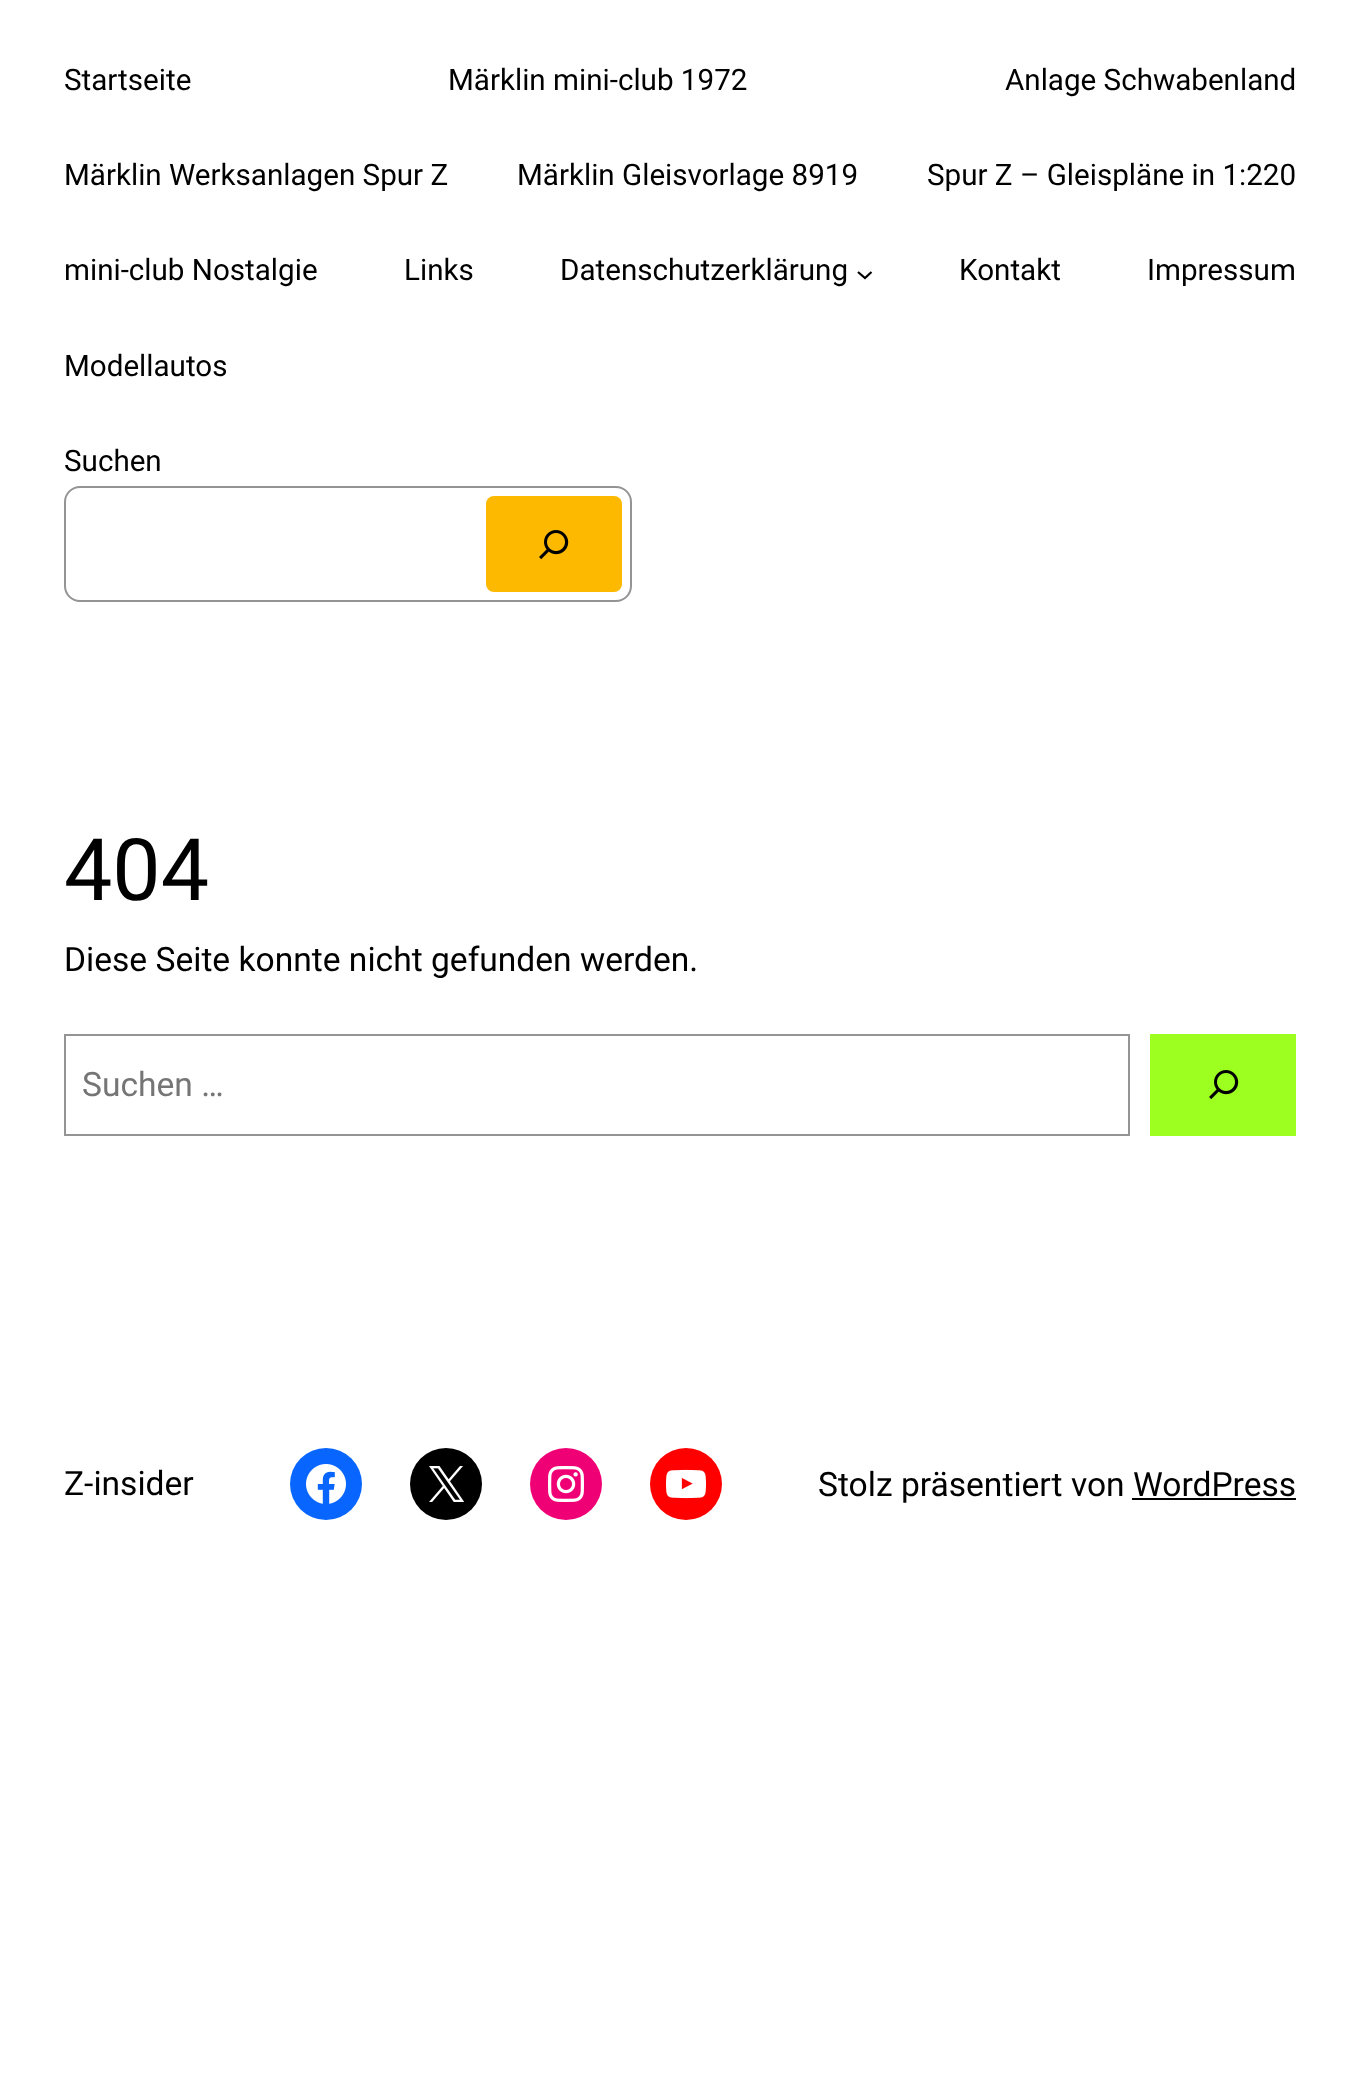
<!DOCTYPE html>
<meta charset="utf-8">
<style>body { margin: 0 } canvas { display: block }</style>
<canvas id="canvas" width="1360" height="2080"></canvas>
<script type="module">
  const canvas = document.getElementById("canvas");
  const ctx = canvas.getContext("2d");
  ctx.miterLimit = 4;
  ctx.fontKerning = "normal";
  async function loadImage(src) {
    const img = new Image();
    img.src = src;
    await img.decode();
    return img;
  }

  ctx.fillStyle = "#ffffff";
  ctx.fillRect(0, 0, 1360, 2080);
  ctx.font = "29.6px Roboto";
  ctx.fillStyle = "#000000";
  ctx.fillText("Startseite", 64, 90);
  ctx.fillText("Märklin mini-club 1972", 448, 90);
  ctx.fillText("Anlage Schwabenland", 1005, 90);
  ctx.fillText("Märklin Werksanlagen Spur Z", 64, 185);
  ctx.fillText("Märklin Gleisvorlage 8919", 517, 185);
  ctx.fillText("Spur Z – Gleispläne in 1:220", 927, 185);
  ctx.fillText("mini-club Nostalgie", 64, 280);
  ctx.fillText("Links", 404, 280);
  ctx.fillText("Datenschutzerklärung", 560, 280);
  ctx.beginPath();
  ctx.moveTo(858, 272);
  ctx.lineTo(865, 278);
  ctx.lineTo(871.5, 272);
  ctx.strokeStyle = "#000000";
  ctx.lineWidth = 2.2;
  ctx.stroke();
  ctx.fillText("Kontakt", 959, 280);
  ctx.fillText("Impressum", 1147, 280);
  ctx.fillText("Modellautos", 64, 376);
  ctx.fillText("Suchen", 64, 471);
  ctx.beginPath();
  ctx.roundRect(65, 487, 566, 114, 15);
  ctx.strokeStyle = "#949494";
  ctx.lineWidth = 2;
  ctx.stroke();
  ctx.fillStyle = "#fcb900";
  ctx.beginPath();
  ctx.roundRect(486, 496, 136, 96, 8);
  ctx.fill();
  ctx.drawImage(await loadImage("img1.png"), 539, 530, 30, 30);
  ctx.font = "86px Roboto";
  ctx.fillStyle = "#000000";
  ctx.fillText("404", 64, 900);
  ctx.font = "33.6px Roboto";
  ctx.fillText("Diese Seite konnte nicht gefunden werden.", 64, 971);
  ctx.strokeRect(65, 1035, 1064, 100);
  ctx.fillStyle = "#757575";
  ctx.fillText("Suchen …", 82, 1096);
  ctx.fillStyle = "#9dff20";
  ctx.fillRect(1150, 1034, 146, 102);
  ctx.drawImage(await loadImage("img2.png"), 1209, 1070, 30, 30);
  ctx.fillStyle = "#000000";
  ctx.fillText("Z-insider", 64, 1495);
  ctx.fillStyle = "#0866ff";
  ctx.beginPath();
  ctx.arc(326, 1484, 36, 0, Math.PI * 2);
  ctx.fill();
  ctx.drawImage(await loadImage("img3.png"), 306, 1464, 40, 40);
  ctx.fillStyle = "#000000";
  ctx.beginPath();
  ctx.arc(446, 1484, 36, 0, Math.PI * 2);
  ctx.fill();
  ctx.drawImage(await loadImage("img4.png"), 429, 1466, 36, 36);
  ctx.fillStyle = "#f00075";
  ctx.beginPath();
  ctx.arc(566, 1484, 36, 0, Math.PI * 2);
  ctx.fill();
  ctx.drawImage(await loadImage("img5.png"), 548, 1466, 36, 36);
  ctx.fillStyle = "#ff0000";
  ctx.beginPath();
  ctx.arc(686, 1484, 36, 0, Math.PI * 2);
  ctx.fill();
  ctx.drawImage(await loadImage("img6.png"), 666, 1469, 40, 30);
  ctx.fillStyle = "#000000";
  ctx.fillText("Stolz präsentiert von", 818, 1496);
  ctx.fillText("WordPress", 1133, 1496);
  ctx.fillRect(1132, 1498, 164, 2);
</script>
